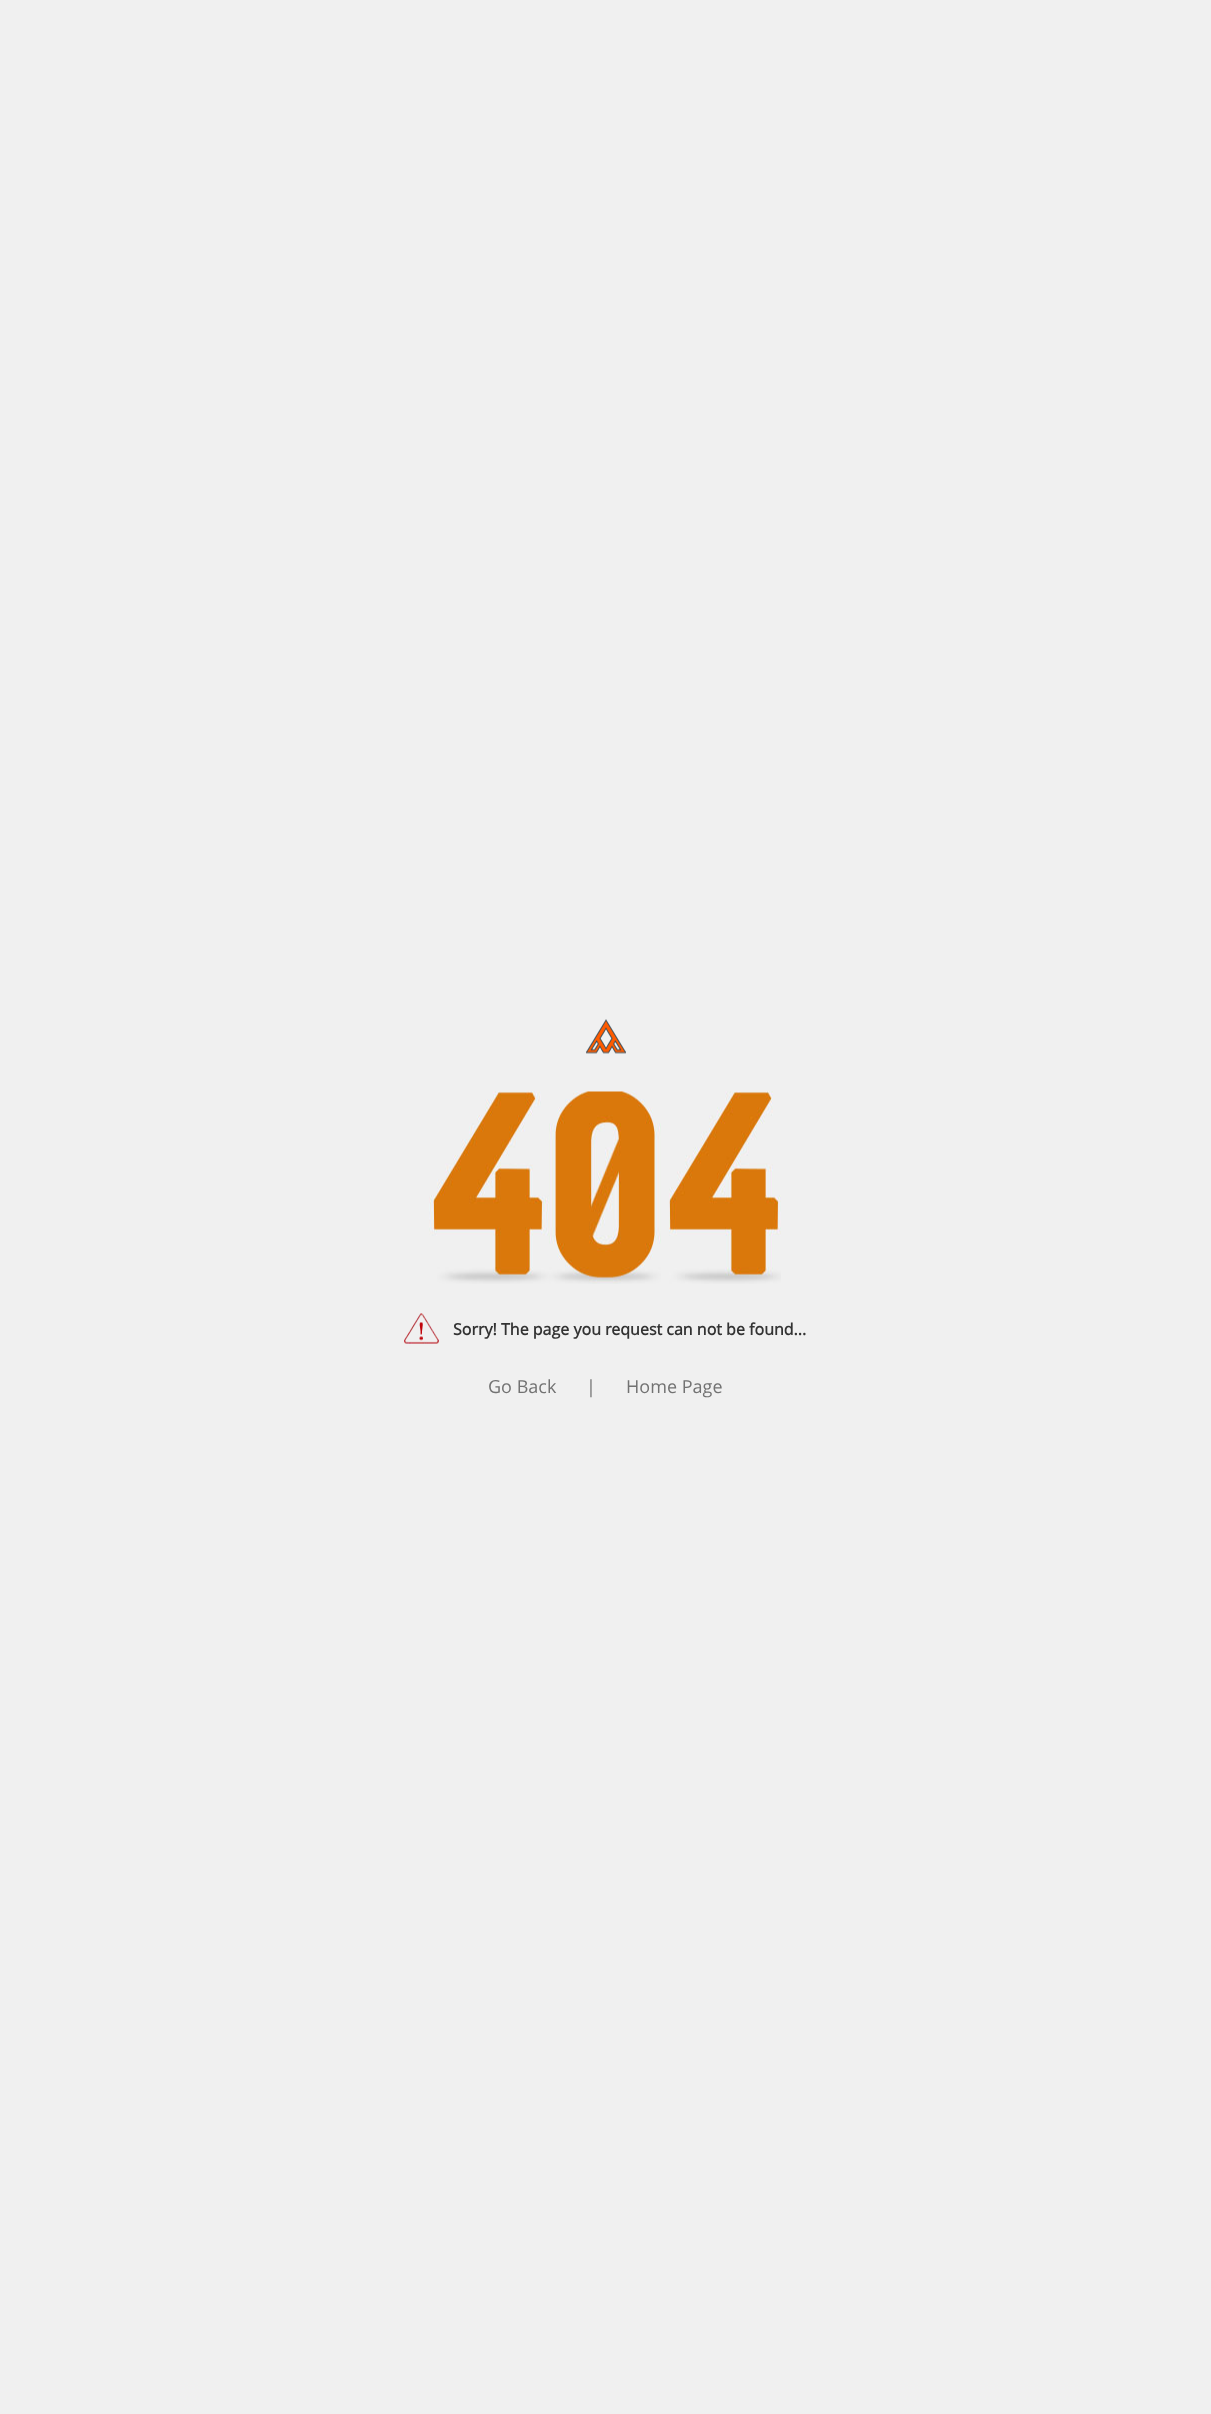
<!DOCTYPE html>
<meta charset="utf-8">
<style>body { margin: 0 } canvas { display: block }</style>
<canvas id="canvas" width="1211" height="2414"></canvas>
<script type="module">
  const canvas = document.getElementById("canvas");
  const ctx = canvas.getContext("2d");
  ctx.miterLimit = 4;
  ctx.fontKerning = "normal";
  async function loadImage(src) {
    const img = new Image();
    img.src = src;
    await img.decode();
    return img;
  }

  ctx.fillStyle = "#f0f0f0";
  ctx.fillRect(0, 0, 1211, 2414);
  ctx.drawImage(await loadImage("img1.png"), 586, 1019, 40, 35);
  ctx.drawImage(await loadImage("img2.png"), 429, 1091, 352, 193);
  ctx.drawImage(await loadImage("img3.png"), 404, 1313, 35, 31);
  ctx.font = "bold 16px Open Sans";
  ctx.fillStyle = "#333333";
  ctx.fillText("Sorry! The page you request can not be found...", 453, 1335);
  ctx.font = "18px Open Sans";
  ctx.fillStyle = "#727272";
  ctx.fillText("Go Back", 488, 1393);
  ctx.fillText("|", 586, 1393);
  ctx.fillText("Home Page", 626, 1393);
</script>
